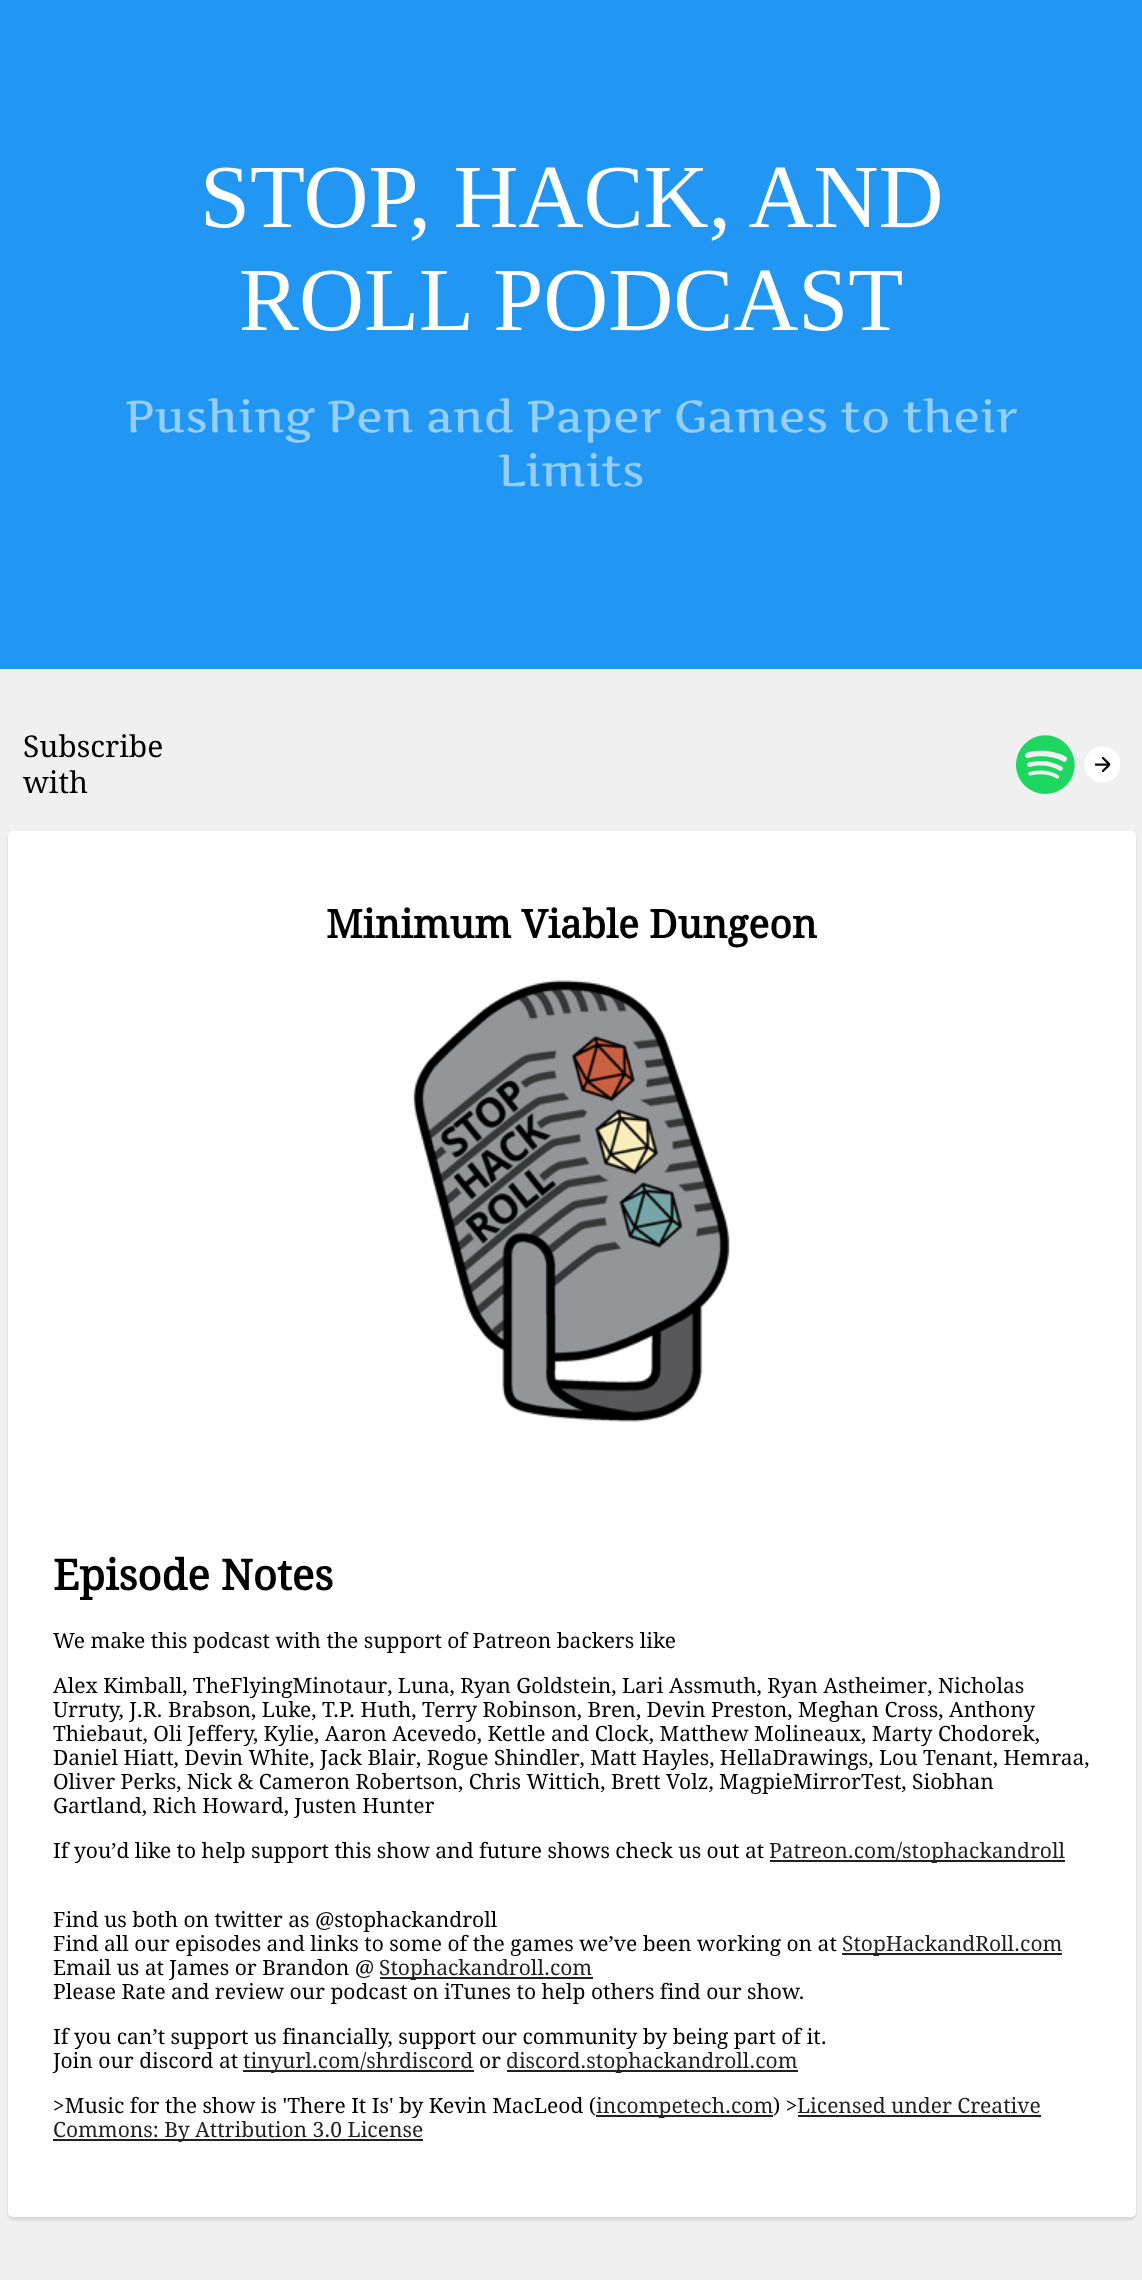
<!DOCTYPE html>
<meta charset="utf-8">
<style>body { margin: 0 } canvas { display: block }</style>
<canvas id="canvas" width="1142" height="2280"></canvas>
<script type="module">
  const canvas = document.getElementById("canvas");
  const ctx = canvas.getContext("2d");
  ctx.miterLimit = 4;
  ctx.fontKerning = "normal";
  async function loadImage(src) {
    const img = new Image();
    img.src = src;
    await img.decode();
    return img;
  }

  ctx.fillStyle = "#f0f0f0";
  ctx.fillRect(0, 0, 1142, 2280);
  ctx.fillStyle = "#2196f3";
  ctx.fillRect(0, 0, 1142, 669);
  ctx.font = "90px Tinos";
  ctx.fillStyle = "#ffffff";
  ctx.fillText("STOP, HACK, AND", 200, 227);
  ctx.fillText("ROLL PODCAST", 239, 330);
  ctx.font = "45px Artifika";
  ctx.fillStyle = "#96cfff";
  ctx.fillText("Pushing Pen and Paper Games to their", 125, 432);
  ctx.fillText("Limits", 498, 486);
  ctx.font = "30px Droid Serif";
  ctx.fillStyle = "#000000";
  ctx.fillText("Subscribe", 23, 757);
  ctx.fillText("with", 23, 793);
  ctx.drawImage(await loadImage("img1.png"), 1016, 735, 104, 59);
  ctx.fillStyle = "rgba(0, 0, 0, 0.1)";
  ctx.filter = "blur(1px)";
  ctx.beginPath();
  ctx.roundRect(8, 834, 1128, 1386, 5);
  ctx.fill();
  ctx.filter = "none";
  ctx.fillStyle = "#ffffff";
  ctx.beginPath();
  ctx.roundRect(8, 831, 1128, 1386, 5);
  ctx.fill();
  ctx.font = "bold 39px Droid Serif";
  ctx.fillStyle = "#000000";
  ctx.fillText("Minimum Viable Dungeon", 326, 938);
  ctx.drawImage(await loadImage("img2.png"), 413, 980, 317, 442);
  ctx.font = "bold 42px Droid Serif";
  ctx.fillText("Episode Notes", 53, 1590);
  ctx.font = "21px Droid Serif";
  ctx.fillText("We make this podcast with the support of Patreon backers like", 53, 1648);
  ctx.fillText("Alex Kimball, TheFlyingMinotaur, Luna, Ryan Goldstein, Lari Assmuth, Ryan Astheimer, Nicholas", 53, 1693);
  ctx.fillText("Urruty, J.R. Brabson, Luke, T.P. Huth, Terry Robinson, Bren, Devin Preston, Meghan Cross, Anthony", 53, 1717);
  ctx.fillText("Thiebaut, Oli Jeffery, Kylie, Aaron Acevedo, Kettle and Clock, Matthew Molineaux, Marty Chodorek,", 53, 1741);
  ctx.fillText("Daniel Hiatt, Devin White, Jack Blair, Rogue Shindler, Matt Hayles, HellaDrawings, Lou Tenant, Hemraa,", 53, 1765);
  ctx.fillText("Oliver Perks, Nick & Cameron Robertson, Chris Wittich, Brett Volz, MagpieMirrorTest, Siobhan", 53, 1789);
  ctx.fillText("Gartland, Rich Howard, Justen Hunter", 53, 1813);
  ctx.fillText("If you’d like to help support this show and future shows check us out at", 53, 1858);
  ctx.fillStyle = "#212121";
  ctx.fillRect(770, 1860, 295, 2);
  ctx.fillText("Patreon.com/stophackandroll", 769, 1858);
  ctx.fillStyle = "#000000";
  ctx.fillText("Find us both on twitter as @stophackandroll", 53, 1927);
  ctx.fillText("Find all our episodes and links to some of the games we’ve been working on at", 53, 1951);
  ctx.fillStyle = "#212121";
  ctx.fillRect(842, 1953, 220, 2);
  ctx.fillText("StopHackandRoll.com", 842, 1951);
  ctx.fillStyle = "#000000";
  ctx.fillText("Email us at James or Brandon @", 53, 1975);
  ctx.fillStyle = "#212121";
  ctx.fillRect(380, 1977, 213, 2);
  ctx.fillText("Stophackandroll.com", 379, 1975);
  ctx.fillStyle = "#000000";
  ctx.fillText("Please Rate and review our podcast on iTunes to help others find our show.", 53, 1999);
  ctx.fillText("If you can’t support us financially, support our community by being part of it.", 53, 2044);
  ctx.fillText("Join our discord at", 53, 2068);
  ctx.fillStyle = "#212121";
  ctx.fillRect(243, 2070, 231, 2);
  ctx.fillText("tinyurl.com/shrdiscord", 243, 2068);
  ctx.fillStyle = "#000000";
  ctx.fillText("or", 479, 2068);
  ctx.fillStyle = "#212121";
  ctx.fillRect(507, 2070, 291, 2);
  ctx.fillText("discord.stophackandroll.com", 506, 2068);
  ctx.fillStyle = "#000000";
  ctx.fillText(">Music for the show is 'There It Is' by Kevin MacLeod (", 53, 2113);
  ctx.fillStyle = "#212121";
  ctx.fillRect(596, 2115, 177, 2);
  ctx.fillText("incompetech.com", 596, 2113);
  ctx.fillStyle = "#000000";
  ctx.fillText(") >", 773, 2113);
  ctx.fillStyle = "#212121";
  ctx.fillText("Licensed under Creative", 797, 2113);
  ctx.fillRect(798, 2115, 243, 2);
  ctx.fillRect(53, 2139, 370, 2);
  ctx.fillText("Commons: By Attribution 3.0 License", 53, 2137);
</script>
